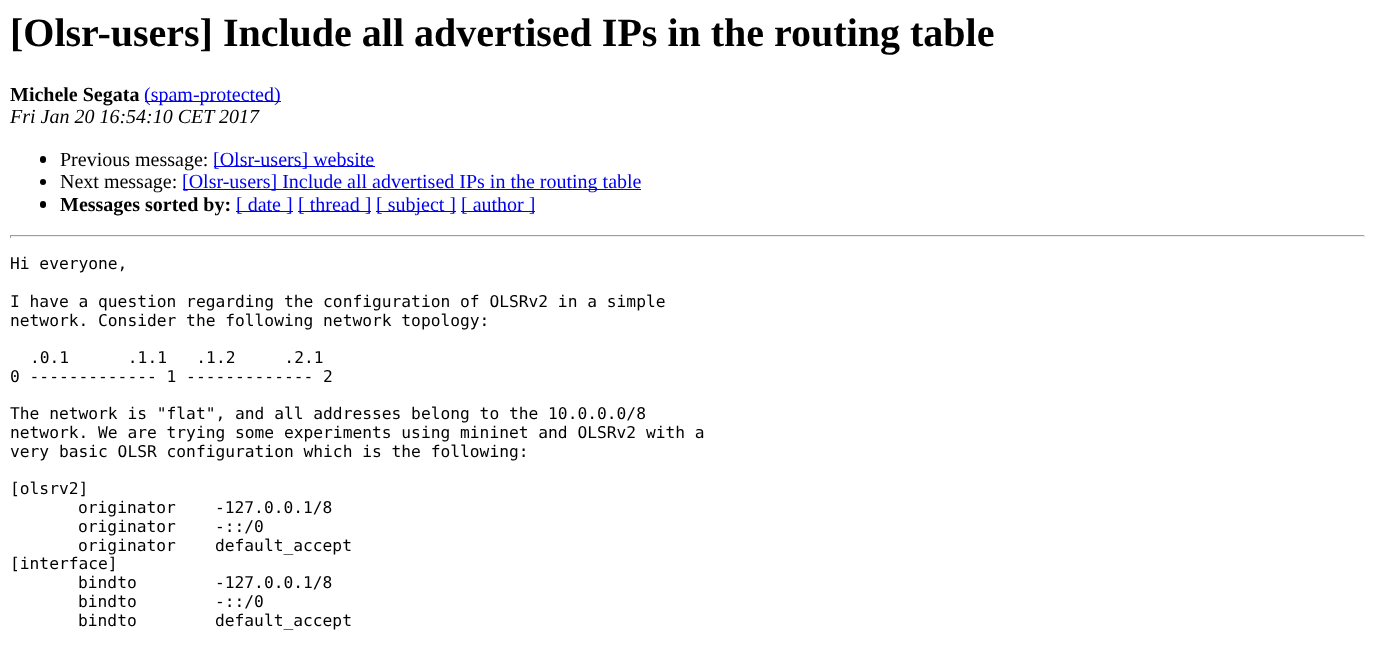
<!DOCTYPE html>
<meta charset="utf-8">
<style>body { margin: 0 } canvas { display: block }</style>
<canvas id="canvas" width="1374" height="656"></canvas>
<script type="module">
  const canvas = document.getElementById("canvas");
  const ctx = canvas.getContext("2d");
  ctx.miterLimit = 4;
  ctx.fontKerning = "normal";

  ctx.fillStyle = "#ffffff";
  ctx.fillRect(0, 0, 1374, 656);
  ctx.font = "bold 40px Liberation Serif";
  ctx.fillStyle = "#000000";
  ctx.fillText("[Olsr-users] Include all advertised IPs in the routing table", 10, 46);
  ctx.font = "bold 20px Liberation Serif";
  ctx.fillText("Michele Segata", 10, 101);
  ctx.fillStyle = "#0000ee";
  ctx.fillRect(145, 101, 136, 1);
  ctx.font = "20px Liberation Serif";
  ctx.fillText("(spam-protected)", 144, 101);
  ctx.font = "italic 20px Liberation Serif";
  ctx.fillStyle = "#000000";
  ctx.fillText("Fri Jan 20 16:54:10 CET 2017", 10, 123);
  ctx.beginPath();
  ctx.roundRect(40, 156, 6, 7, 3);
  ctx.fill();
  ctx.font = "20px Liberation Serif";
  ctx.fillText("Previous message:", 60, 166);
  ctx.fillStyle = "#0000ee";
  ctx.fillRect(214, 166, 161, 1);
  ctx.fillText("[Olsr-users] website", 213, 166);
  ctx.fillStyle = "#000000";
  ctx.beginPath();
  ctx.arc(43, 182, 3, 0, Math.PI * 2);
  ctx.fill();
  ctx.fillText("Next message:", 60, 188);
  ctx.fillStyle = "#0000ee";
  ctx.fillRect(183, 189, 458, 1);
  ctx.fillText("[Olsr-users] Include all advertised IPs in the routing table", 182, 188);
  ctx.fillStyle = "#000000";
  ctx.beginPath();
  ctx.roundRect(40, 201, 6, 7, 3);
  ctx.fill();
  ctx.font = "bold 20px Liberation Serif";
  ctx.fillText("Messages sorted by:", 60, 211);
  ctx.fillStyle = "#0000ee";
  ctx.fillRect(236, 211, 57, 1);
  ctx.font = "20px Liberation Serif";
  ctx.fillText("[ date ]", 236, 211);
  ctx.fillRect(298, 211, 73, 1);
  ctx.fillText("[ thread ]", 298, 211);
  ctx.fillRect(376, 211, 80, 1);
  ctx.fillText("[ subject ]", 376, 211);
  ctx.fillRect(461, 211, 74, 1);
  ctx.fillText("[ author ]", 461, 211);
  ctx.fillStyle = "#9f9f9f";
  ctx.fillRect(10, 235, 1355, 1);
  ctx.fillStyle = "#eeeeee";
  ctx.fillRect(1364, 235, 1, 3);
  ctx.fillRect(10, 236, 1355, 1);
  ctx.fillStyle = "#9f9f9f";
  ctx.fillRect(10, 235, 1, 3);
  ctx.font = "16.25px DejaVu Sans Mono";
  ctx.fillStyle = "#000000";
  ctx.fillText("Hi everyone,", 10, 269);
  ctx.fillText("I have a question regarding the configuration of OLSRv2 in a simple", 10, 307);
  ctx.fillText("network. Consider the following network topology:", 10, 326);
  ctx.fillText(".0.1      .1.1   .1.2     .2.1", 30, 363);
  ctx.fillText("0 ------------- 1 ------------- 2", 10, 382);
  ctx.fillText("The network is \"flat\", and all addresses belong to the 10.0.0.0/8", 10, 419);
  ctx.fillText("network. We are trying some experiments using mininet and OLSRv2 with a", 10, 438);
  ctx.fillText("very basic OLSR configuration which is the following:", 10, 457);
  ctx.fillText("[olsrv2]", 10, 494);
  ctx.fillText("originator    -127.0.0.1/8", 78, 513);
  ctx.fillText("originator    -::/0", 78, 532);
  ctx.fillText("originator    default_accept", 78, 551);
  ctx.fillText("[interface]", 10, 569);
  ctx.fillText("bindto        -127.0.0.1/8", 78, 588);
  ctx.fillText("bindto        -::/0", 78, 607);
  ctx.fillText("bindto        default_accept", 78, 626);
</script>
